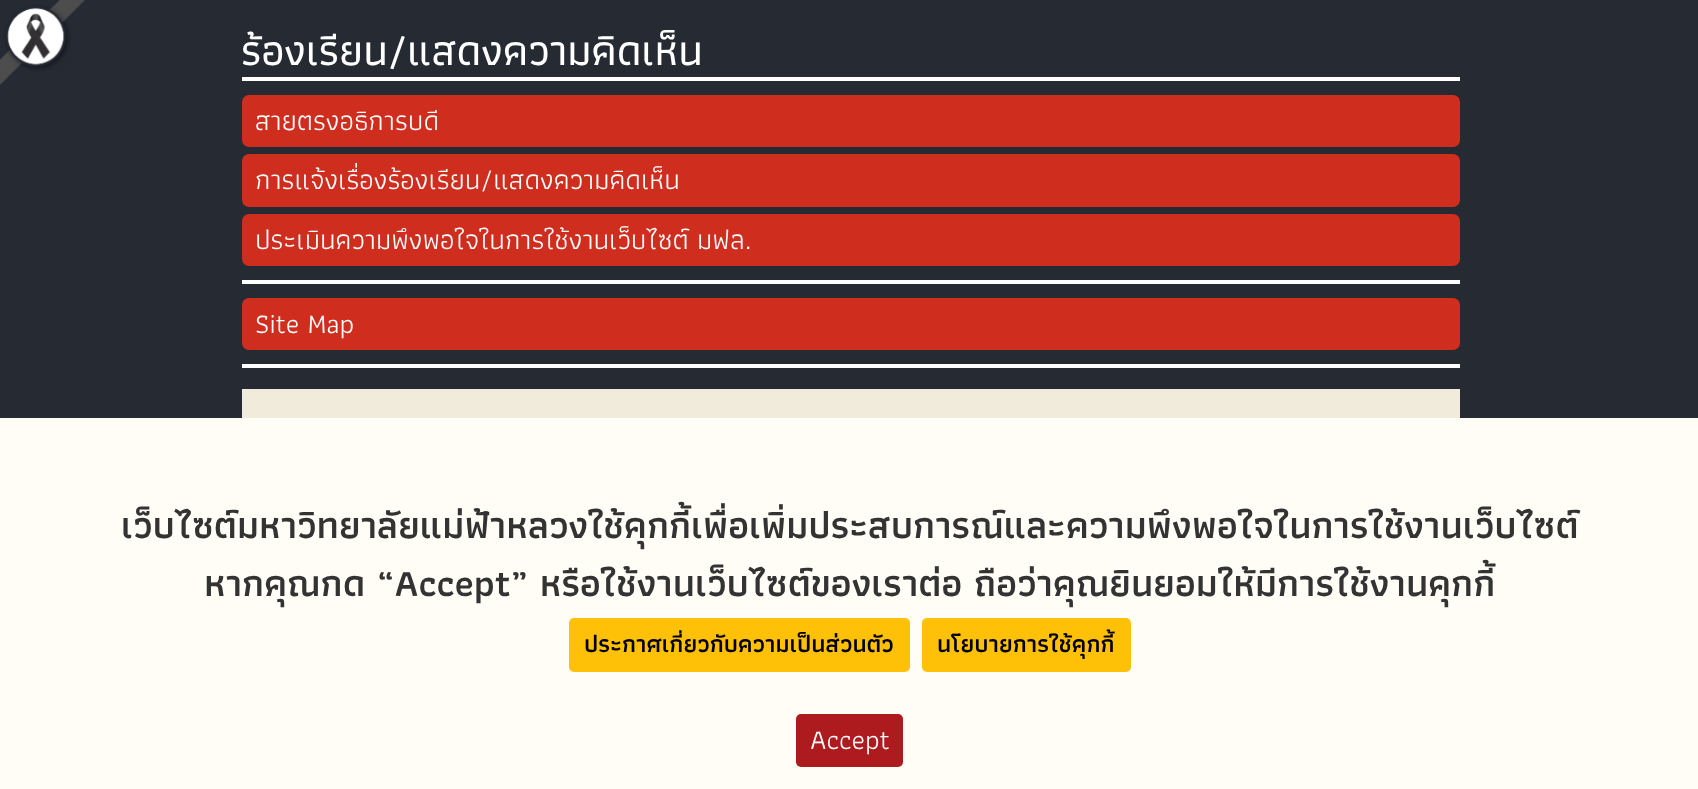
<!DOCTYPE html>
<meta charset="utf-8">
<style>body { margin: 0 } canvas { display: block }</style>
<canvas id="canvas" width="1698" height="789"></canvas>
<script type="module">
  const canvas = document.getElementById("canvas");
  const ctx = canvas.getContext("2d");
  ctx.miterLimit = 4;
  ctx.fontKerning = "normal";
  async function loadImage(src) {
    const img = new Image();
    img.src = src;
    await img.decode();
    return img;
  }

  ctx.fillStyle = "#252a33";
  ctx.fillRect(0, 0, 1698, 789);
  ctx.drawImage(await loadImage("img1.png"), 0, 0, 85, 85);
  ctx.fillStyle = "#ffffff";
  ctx.fillRect(242, 77, 1218, 4);
  ctx.font = "500 43.75px Athiti";
  ctx.fillText("ร้องเรียน/แสดงความคิดเห็น", 241, 65);
  ctx.fillStyle = "#cf2d1e";
  ctx.beginPath();
  ctx.roundRect(242, 95, 1218, 52, 7);
  ctx.fill();
  ctx.font = "28px Athiti";
  ctx.fillStyle = "#ffffff";
  ctx.fillText("สายตรงอธิการบดี", 255, 130);
  ctx.fillStyle = "#cf2d1e";
  ctx.beginPath();
  ctx.roundRect(242, 154, 1218, 53, 7);
  ctx.fill();
  ctx.fillStyle = "#ffffff";
  ctx.fillText("การแจ้งเรื่องร้องเรียน/แสดงความคิดเห็น", 255, 189);
  ctx.fillRect(242, 280, 1218, 4);
  ctx.fillStyle = "#cf2d1e";
  ctx.beginPath();
  ctx.roundRect(242, 214, 1218, 52, 7);
  ctx.fill();
  ctx.fillStyle = "#ffffff";
  ctx.fillText("ประเมินความพึงพอใจในการใช้งานเว็บไซต์ มฟล.", 255, 249);
  ctx.fillRect(242, 364, 1218, 4);
  ctx.fillStyle = "#cf2d1e";
  ctx.beginPath();
  ctx.roundRect(242, 298, 1218, 52, 7);
  ctx.fill();
  ctx.fillStyle = "#ffffff";
  ctx.fillText("Site Map", 255, 333);
  ctx.fillStyle = "#f1ebdc";
  ctx.fillRect(242, 389, 1218, 29);
  ctx.fillStyle = "#fffdf6";
  ctx.fillRect(0, 418, 1698, 371);
  ctx.font = "600 38.5px Athiti";
  ctx.fillStyle = "#333333";
  ctx.fillText("เว็บไซต์มหาวิทยาลัยแม่ฟ้าหลวงใช้คุกกี้เพื่อเพิ่มประสบการณ์และความพึงพอใจในการใช้งานเว็บไซต์", 121, 538);
  ctx.fillText("หากคุณกด “Accept” หรือใช้งานเว็บไซต์ของเราต่อ ถือว่าคุณยินยอมให้มีการใช้งานคุกกี้", 204, 596);
  ctx.fillStyle = "#ffc107";
  ctx.beginPath();
  ctx.roundRect(570, 619, 339, 52, 4);
  ctx.fill();
  ctx.strokeStyle = "#ffc107";
  ctx.lineWidth = 2;
  ctx.stroke();
  ctx.font = "600 24.5px Athiti";
  ctx.fillStyle = "#000000";
  ctx.fillText("ประกาศเกี่ยวกับความเป็นส่วนตัว", 584, 652);
  ctx.fillStyle = "#ffc107";
  ctx.beginPath();
  ctx.roundRect(923, 619, 207, 52, 4);
  ctx.fill();
  ctx.stroke();
  ctx.fillStyle = "#000000";
  ctx.fillText("นโยบายการใช้คุกกี้", 937, 652);
  ctx.fillStyle = "#ae1b1f";
  ctx.beginPath();
  ctx.roundRect(796, 714, 107, 53, 5);
  ctx.fill();
  ctx.font = "28px Athiti";
  ctx.fillStyle = "#ffffff";
  ctx.fillText("Accept", 810, 749);
</script>
